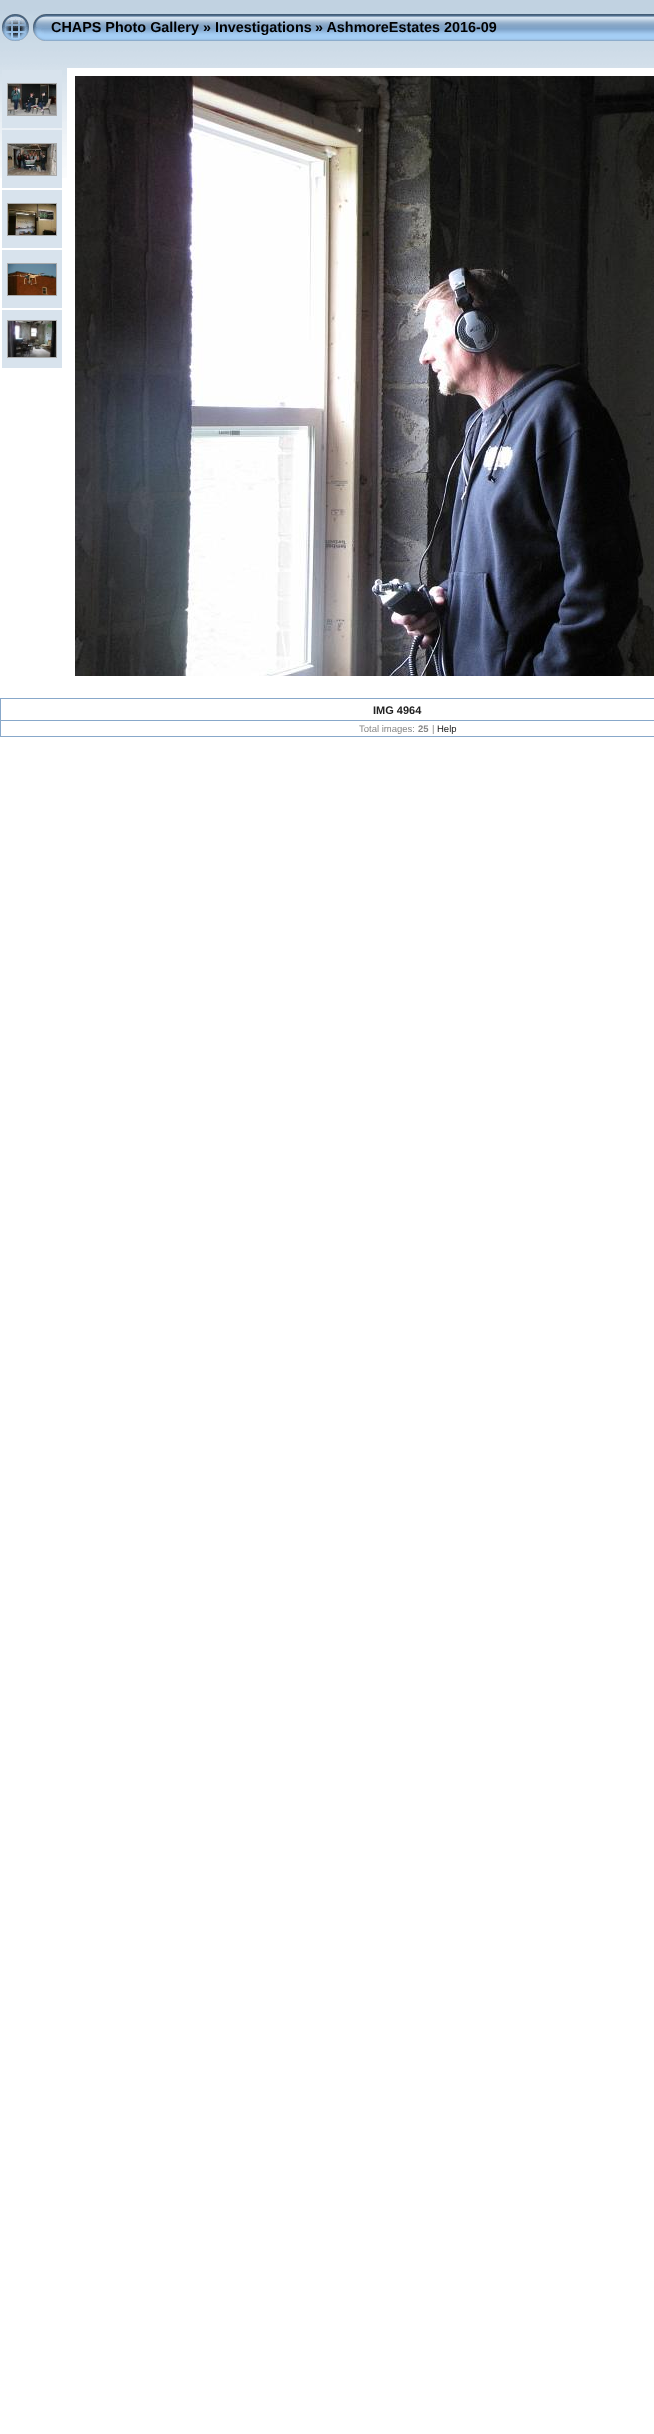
<!DOCTYPE html>
<meta charset="utf-8">
<style>body { margin: 0 } canvas { display: block }</style>
<canvas id="canvas" width="654" height="2434"></canvas>
<script type="module">
  const canvas = document.getElementById("canvas");
  const ctx = canvas.getContext("2d");
  ctx.miterLimit = 4;
  ctx.fontKerning = "normal";
  async function loadImage(src) {
    const img = new Image();
    img.src = src;
    await img.decode();
    return img;
  }

  ctx.fillStyle = "#ffffff";
  ctx.fillRect(0, 0, 654, 2434);
  ctx.drawImage(await loadImage("img1.png"), 0, 0, 654, 178);
  ctx.drawImage(await loadImage("img2.png"), 2, 14, 27, 27);
  ctx.drawImage(await loadImage("img3.png"), 33, 14, 18, 27);
  ctx.drawImage(await loadImage("img4.png"), 51, 14, 603, 27);
  ctx.font = "bold 14.4px Liberation Sans";
  ctx.fillStyle = "#000000";
  ctx.fillText("CHAPS Photo Gallery » Investigations", 51, 32);
  ctx.fillText("» AshmoreEstates 2016-09", 315, 32);
  ctx.fillStyle = "#d8e3ed";
  ctx.fillRect(2, 70, 60, 58);
  ctx.strokeStyle = "#aaaaaa";
  ctx.strokeRect(7.5, 83.5, 49, 32);
  ctx.drawImage(await loadImage("img5.png"), 8, 84, 48, 31);
  ctx.fillRect(2, 130, 60, 58);
  ctx.strokeRect(7.5, 143.5, 49, 32);
  ctx.drawImage(await loadImage("img6.png"), 8, 144, 48, 31);
  ctx.fillRect(2, 190, 60, 58);
  ctx.strokeRect(7.5, 203.5, 49, 32);
  ctx.drawImage(await loadImage("img7.png"), 8, 204, 48, 31);
  ctx.fillRect(2, 250, 60, 58);
  ctx.strokeRect(7.5, 263.5, 49, 32);
  ctx.drawImage(await loadImage("img8.png"), 8, 264, 48, 31);
  ctx.fillRect(2, 310, 60, 58);
  ctx.strokeRect(7.5, 320.5, 49, 37);
  ctx.drawImage(await loadImage("img9.png"), 8, 321, 48, 36);
  ctx.strokeStyle = "#ffffff";
  ctx.lineWidth = 8;
  ctx.strokeRect(71, 72, 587, 608);
  ctx.drawImage(await loadImage("img10.png"), 75, 76, 579, 600);
  ctx.fillStyle = "#88a8ca";
  ctx.fillRect(0, 698, 654, 1);
  ctx.fillRect(0, 736, 654, 1);
  ctx.fillRect(0, 698, 1, 39);
  ctx.font = "bold 11px Liberation Sans";
  ctx.fillStyle = "#222222";
  ctx.fillText("IMG 4964", 373, 714);
  ctx.fillStyle = "#88a8ca";
  ctx.fillRect(0, 720, 654, 1);
  ctx.font = "9.5px Liberation Sans";
  ctx.fillStyle = "#888888";
  ctx.fillText("Total images:", 359, 732);
  ctx.font = "bold 9.5px Liberation Sans";
  ctx.fillText("25", 418, 732);
  ctx.font = "9.5px Liberation Sans";
  ctx.fillText("|", 432, 732);
  ctx.fillStyle = "#222222";
  ctx.fillText("Help", 437, 732);
</script>
